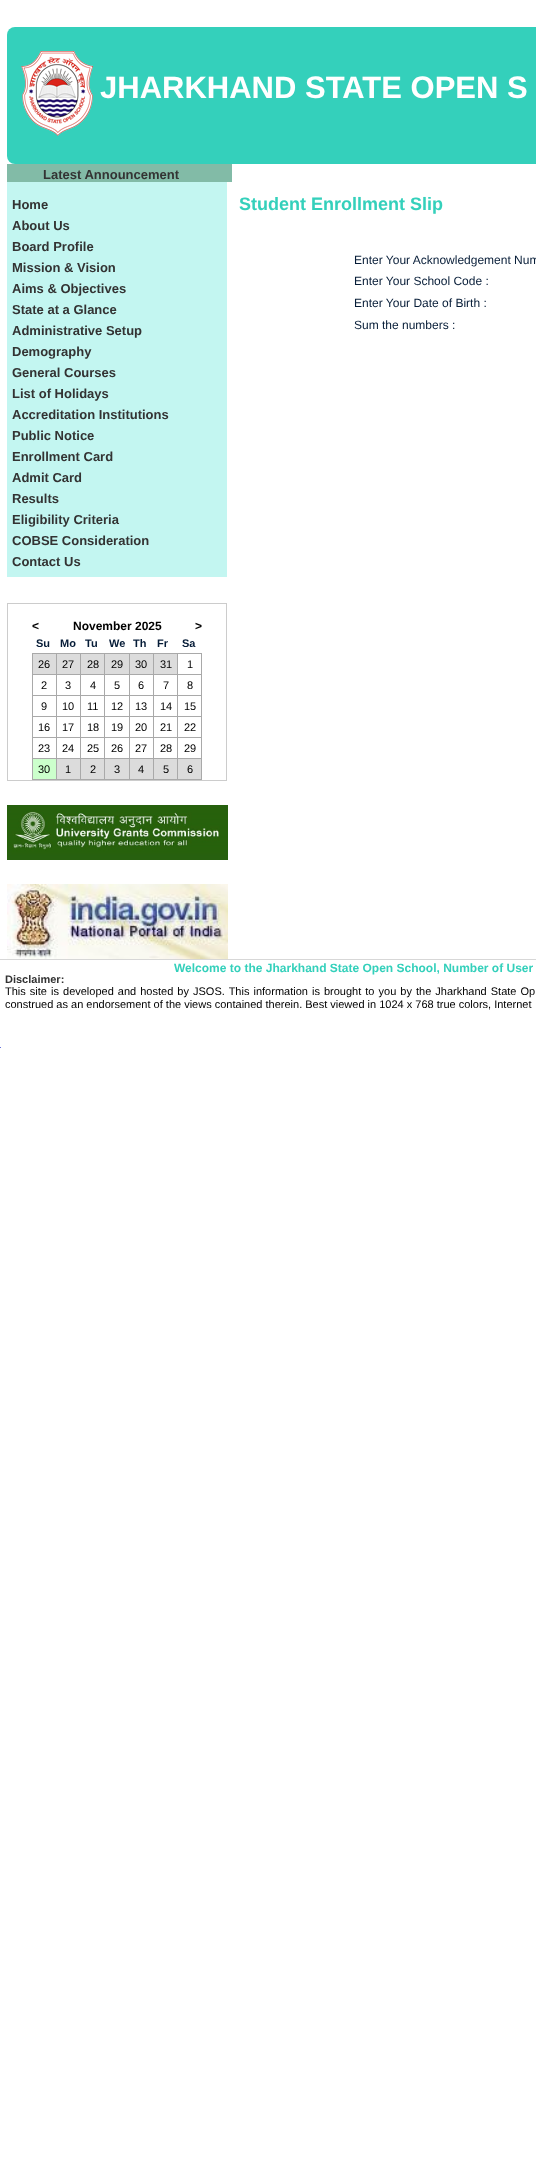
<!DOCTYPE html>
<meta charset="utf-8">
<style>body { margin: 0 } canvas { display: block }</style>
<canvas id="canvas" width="536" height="2172"></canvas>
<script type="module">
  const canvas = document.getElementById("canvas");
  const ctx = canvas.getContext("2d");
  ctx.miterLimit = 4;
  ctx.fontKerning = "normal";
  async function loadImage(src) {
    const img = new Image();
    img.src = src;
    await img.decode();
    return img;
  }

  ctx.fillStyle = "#ffffff";
  ctx.fillRect(0, 0, 536, 2172);
  ctx.fillStyle = "#34d0bb";
  ctx.beginPath();
  ctx.roundRect(7, 27, 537, 137, 8);
  ctx.fill();
  ctx.drawImage(await loadImage("img1.png"), 21, 51, 72, 85);
  ctx.font = "bold 31px Liberation Sans";
  ctx.fillStyle = "#ffffff";
  ctx.fillText("JHARKHAND STATE OPEN S", 100, 98);
  ctx.fillStyle = "#82bba7";
  ctx.fillRect(7, 164, 225, 18);
  ctx.font = "bold 13px Liberation Sans";
  ctx.fillStyle = "#333333";
  ctx.fillText("Latest Announcement", 43, 179);
  ctx.fillStyle = "#c3f6f1";
  ctx.fillRect(7, 182, 220, 395);
  ctx.fillStyle = "#333333";
  ctx.fillText("Home", 12, 209);
  ctx.fillText("About Us", 12, 230);
  ctx.fillText("Board Profile", 12, 251);
  ctx.fillText("Mission & Vision", 12, 272);
  ctx.fillText("Aims & Objectives", 12, 293);
  ctx.fillText("State at a Glance", 12, 314);
  ctx.fillText("Administrative Setup", 12, 335);
  ctx.fillText("Demography", 12, 356);
  ctx.fillText("General Courses", 12, 377);
  ctx.fillText("List of Holidays", 12, 398);
  ctx.fillText("Accreditation Institutions", 12, 419);
  ctx.fillText("Public Notice", 12, 440);
  ctx.fillText("Enrollment Card", 12, 461);
  ctx.fillText("Admit Card", 12, 482);
  ctx.fillText("Results", 12, 503);
  ctx.fillText("Eligibility Criteria", 12, 524);
  ctx.fillText("COBSE Consideration", 12, 545);
  ctx.fillText("Contact Us", 12, 566);
  ctx.strokeStyle = "#cccccc";
  ctx.strokeRect(7.5, 603.5, 219, 177);
  ctx.font = "bold 12px Liberation Sans";
  ctx.fillStyle = "#000000";
  ctx.fillText("<", 32, 630);
  ctx.fillText("November 2025", 73, 630);
  ctx.fillText(">", 195, 630);
  ctx.font = "bold 11px Liberation Sans";
  ctx.fillStyle = "#061c37";
  ctx.fillText("Su", 36, 647);
  ctx.fillText("Mo", 60, 647);
  ctx.fillText("Tu", 85, 647);
  ctx.fillText("We", 109, 647);
  ctx.fillText("Th", 133, 647);
  ctx.fillText("Fr", 157, 647);
  ctx.fillText("Sa", 182, 647);
  ctx.fillStyle = "#dcdcdc";
  ctx.fillRect(33, 654, 23, 20);
  ctx.fillStyle = "#a9a9a9";
  ctx.fillRect(177, 653, 25, 1);
  ctx.fillRect(177, 674, 25, 1);
  ctx.fillRect(177, 695, 25, 1);
  ctx.fillRect(177, 716, 25, 1);
  ctx.fillRect(177, 737, 25, 1);
  ctx.fillRect(177, 758, 25, 1);
  ctx.fillRect(201, 758, 1, 22);
  ctx.fillRect(177, 779, 25, 1);
  ctx.fillRect(177, 758, 1, 22);
  ctx.fillRect(153, 758, 25, 1);
  ctx.fillRect(177, 737, 1, 22);
  ctx.fillRect(153, 737, 25, 1);
  ctx.fillRect(177, 716, 1, 22);
  ctx.fillRect(153, 716, 25, 1);
  ctx.fillRect(177, 695, 1, 22);
  ctx.fillRect(153, 695, 25, 1);
  ctx.fillRect(177, 674, 1, 22);
  ctx.fillRect(153, 674, 25, 1);
  ctx.fillRect(177, 653, 1, 22);
  ctx.fillRect(153, 653, 25, 1);
  ctx.fillRect(153, 779, 25, 1);
  ctx.fillRect(153, 758, 1, 22);
  ctx.fillRect(129, 758, 25, 1);
  ctx.fillRect(153, 737, 1, 22);
  ctx.fillRect(129, 737, 25, 1);
  ctx.fillRect(153, 716, 1, 22);
  ctx.fillRect(129, 716, 25, 1);
  ctx.fillRect(153, 695, 1, 22);
  ctx.fillRect(129, 695, 25, 1);
  ctx.fillRect(153, 674, 1, 22);
  ctx.fillRect(129, 674, 25, 1);
  ctx.fillRect(153, 653, 1, 22);
  ctx.fillRect(129, 653, 25, 1);
  ctx.fillRect(129, 779, 25, 1);
  ctx.fillRect(129, 758, 1, 22);
  ctx.fillRect(104, 758, 26, 1);
  ctx.fillRect(129, 737, 1, 22);
  ctx.fillRect(104, 737, 26, 1);
  ctx.fillRect(129, 716, 1, 22);
  ctx.fillRect(104, 716, 26, 1);
  ctx.fillRect(129, 695, 1, 22);
  ctx.fillRect(104, 695, 26, 1);
  ctx.fillRect(129, 674, 1, 22);
  ctx.fillRect(104, 674, 26, 1);
  ctx.fillRect(129, 653, 1, 22);
  ctx.fillRect(104, 653, 26, 1);
  ctx.fillRect(104, 779, 26, 1);
  ctx.fillRect(104, 758, 1, 22);
  ctx.fillRect(80, 758, 25, 1);
  ctx.fillRect(104, 737, 1, 22);
  ctx.fillRect(80, 737, 25, 1);
  ctx.fillRect(104, 716, 1, 22);
  ctx.fillRect(80, 716, 25, 1);
  ctx.fillRect(104, 695, 1, 22);
  ctx.fillRect(80, 695, 25, 1);
  ctx.fillRect(104, 674, 1, 22);
  ctx.fillRect(80, 674, 25, 1);
  ctx.fillRect(104, 653, 1, 22);
  ctx.fillRect(80, 653, 25, 1);
  ctx.fillRect(80, 779, 25, 1);
  ctx.fillRect(80, 758, 1, 22);
  ctx.fillRect(56, 758, 25, 1);
  ctx.fillRect(80, 737, 1, 22);
  ctx.fillRect(56, 737, 25, 1);
  ctx.fillRect(80, 716, 1, 22);
  ctx.fillRect(56, 716, 25, 1);
  ctx.fillRect(80, 695, 1, 22);
  ctx.fillRect(56, 695, 25, 1);
  ctx.fillRect(80, 674, 1, 22);
  ctx.fillRect(56, 674, 25, 1);
  ctx.fillRect(80, 653, 1, 22);
  ctx.fillRect(56, 653, 25, 1);
  ctx.fillRect(56, 779, 25, 1);
  ctx.fillRect(56, 758, 1, 22);
  ctx.fillRect(32, 758, 25, 1);
  ctx.fillRect(56, 737, 1, 22);
  ctx.fillRect(32, 737, 25, 1);
  ctx.fillRect(56, 716, 1, 22);
  ctx.fillRect(32, 716, 25, 1);
  ctx.fillRect(56, 695, 1, 22);
  ctx.fillRect(32, 695, 25, 1);
  ctx.fillRect(56, 674, 1, 22);
  ctx.fillRect(32, 674, 25, 1);
  ctx.fillRect(56, 653, 1, 22);
  ctx.fillRect(32, 653, 25, 1);
  ctx.fillRect(32, 779, 25, 1);
  ctx.fillRect(32, 758, 1, 22);
  ctx.fillRect(32, 737, 1, 22);
  ctx.fillRect(32, 716, 1, 22);
  ctx.fillRect(32, 695, 1, 22);
  ctx.fillRect(32, 674, 1, 22);
  ctx.fillRect(32, 653, 1, 22);
  ctx.font = "11px Liberation Sans";
  ctx.fillStyle = "#000000";
  ctx.fillText("26", 38, 668);
  ctx.fillStyle = "#dcdcdc";
  ctx.fillRect(57, 654, 23, 20);
  ctx.fillStyle = "#000000";
  ctx.fillText("27", 62, 668);
  ctx.fillStyle = "#dcdcdc";
  ctx.fillRect(81, 654, 23, 20);
  ctx.fillStyle = "#000000";
  ctx.fillText("28", 87, 668);
  ctx.fillStyle = "#dcdcdc";
  ctx.fillRect(105, 654, 24, 20);
  ctx.fillStyle = "#000000";
  ctx.fillText("29", 111, 668);
  ctx.fillStyle = "#dcdcdc";
  ctx.fillRect(130, 654, 23, 20);
  ctx.fillStyle = "#000000";
  ctx.fillText("30", 135, 668);
  ctx.fillStyle = "#dcdcdc";
  ctx.fillRect(154, 654, 23, 20);
  ctx.fillStyle = "#000000";
  ctx.fillText("31", 160, 668);
  ctx.fillStyle = "#a9a9a9";
  ctx.fillRect(201, 737, 1, 22);
  ctx.fillRect(201, 716, 1, 22);
  ctx.fillRect(201, 695, 1, 22);
  ctx.fillRect(201, 674, 1, 22);
  ctx.fillRect(201, 653, 1, 22);
  ctx.fillStyle = "#000000";
  ctx.fillText("1", 187, 668);
  ctx.fillText("2", 41, 689);
  ctx.fillText("3", 65, 689);
  ctx.fillText("4", 90, 689);
  ctx.fillText("5", 114, 689);
  ctx.fillText("6", 138, 689);
  ctx.fillText("7", 163, 689);
  ctx.fillText("8", 187, 689);
  ctx.fillText("9", 41, 710);
  ctx.fillText("10", 62, 710);
  ctx.fillText("11", 87, 710);
  ctx.fillText("12", 111, 710);
  ctx.fillText("13", 135, 710);
  ctx.fillText("14", 160, 710);
  ctx.fillText("15", 184, 710);
  ctx.fillText("16", 38, 731);
  ctx.fillText("17", 62, 731);
  ctx.fillText("18", 87, 731);
  ctx.fillText("19", 111, 731);
  ctx.fillText("20", 135, 731);
  ctx.fillText("21", 160, 731);
  ctx.fillText("22", 184, 731);
  ctx.fillText("23", 38, 752);
  ctx.fillText("24", 62, 752);
  ctx.fillText("25", 87, 752);
  ctx.fillText("26", 111, 752);
  ctx.fillText("27", 135, 752);
  ctx.fillText("28", 160, 752);
  ctx.fillText("29", 184, 752);
  ctx.fillStyle = "#ccffcc";
  ctx.fillRect(33, 759, 23, 20);
  ctx.fillStyle = "#000000";
  ctx.fillText("30", 38, 773);
  ctx.fillStyle = "#dcdcdc";
  ctx.fillRect(57, 759, 23, 20);
  ctx.fillStyle = "#000000";
  ctx.fillText("1", 65, 773);
  ctx.fillStyle = "#dcdcdc";
  ctx.fillRect(81, 759, 23, 20);
  ctx.fillStyle = "#000000";
  ctx.fillText("2", 90, 773);
  ctx.fillStyle = "#dcdcdc";
  ctx.fillRect(105, 759, 24, 20);
  ctx.fillStyle = "#000000";
  ctx.fillText("3", 114, 773);
  ctx.fillStyle = "#dcdcdc";
  ctx.fillRect(130, 759, 23, 20);
  ctx.fillStyle = "#000000";
  ctx.fillText("4", 138, 773);
  ctx.fillStyle = "#dcdcdc";
  ctx.fillRect(154, 759, 23, 20);
  ctx.fillStyle = "#000000";
  ctx.fillText("5", 163, 773);
  ctx.fillStyle = "#dcdcdc";
  ctx.fillRect(178, 759, 23, 20);
  ctx.fillStyle = "#000000";
  ctx.fillText("6", 187, 773);
  ctx.drawImage(await loadImage("img2.png"), 7, 805, 221, 55);
  ctx.drawImage(await loadImage("img3.png"), 7, 884, 221, 75);
  ctx.font = "bold 18px Liberation Sans";
  ctx.fillStyle = "#34d0bb";
  ctx.fillText("Student Enrollment Slip", 239, 210);
  ctx.font = "12px Liberation Sans";
  ctx.fillStyle = "#061c37";
  ctx.fillText("Enter Your Acknowledgement Num", 354, 264);
  ctx.fillText("Enter Your School Code :", 354, 285);
  ctx.fillText("Enter Your Date of Birth :", 354, 307);
  ctx.fillText("Sum the numbers :", 354, 329);
  ctx.fillStyle = "#d7d7d7";
  ctx.fillRect(0, 959, 536, 1);
  ctx.font = "bold 12px Liberation Sans";
  ctx.fillStyle = "#34d0bb";
  ctx.fillText("Welcome to the Jharkhand State Open School, Number of User", 174, 972);
  ctx.font = "bold 11px Liberation Sans";
  ctx.fillStyle = "#333333";
  ctx.fillText("Disclaimer:", 5, 983);
  ctx.wordSpacing = "1px";
  ctx.font = "11px Liberation Sans";
  ctx.fillStyle = "#000000";
  ctx.fillText("This site is developed and hosted by JSOS. This information is brought to you by", 5, 995);
  ctx.fillText("the Jharkhand State Op", 416, 995);
  ctx.wordSpacing = "0px";
  ctx.fillText("construed as an endorsement of the views contained therein. Best viewed in 1024 x 768 true colors, Internet", 5, 1008);
  ctx.fillStyle = "#6773dd";
  ctx.fillRect(0, 1047, 1, 1);
</script>
